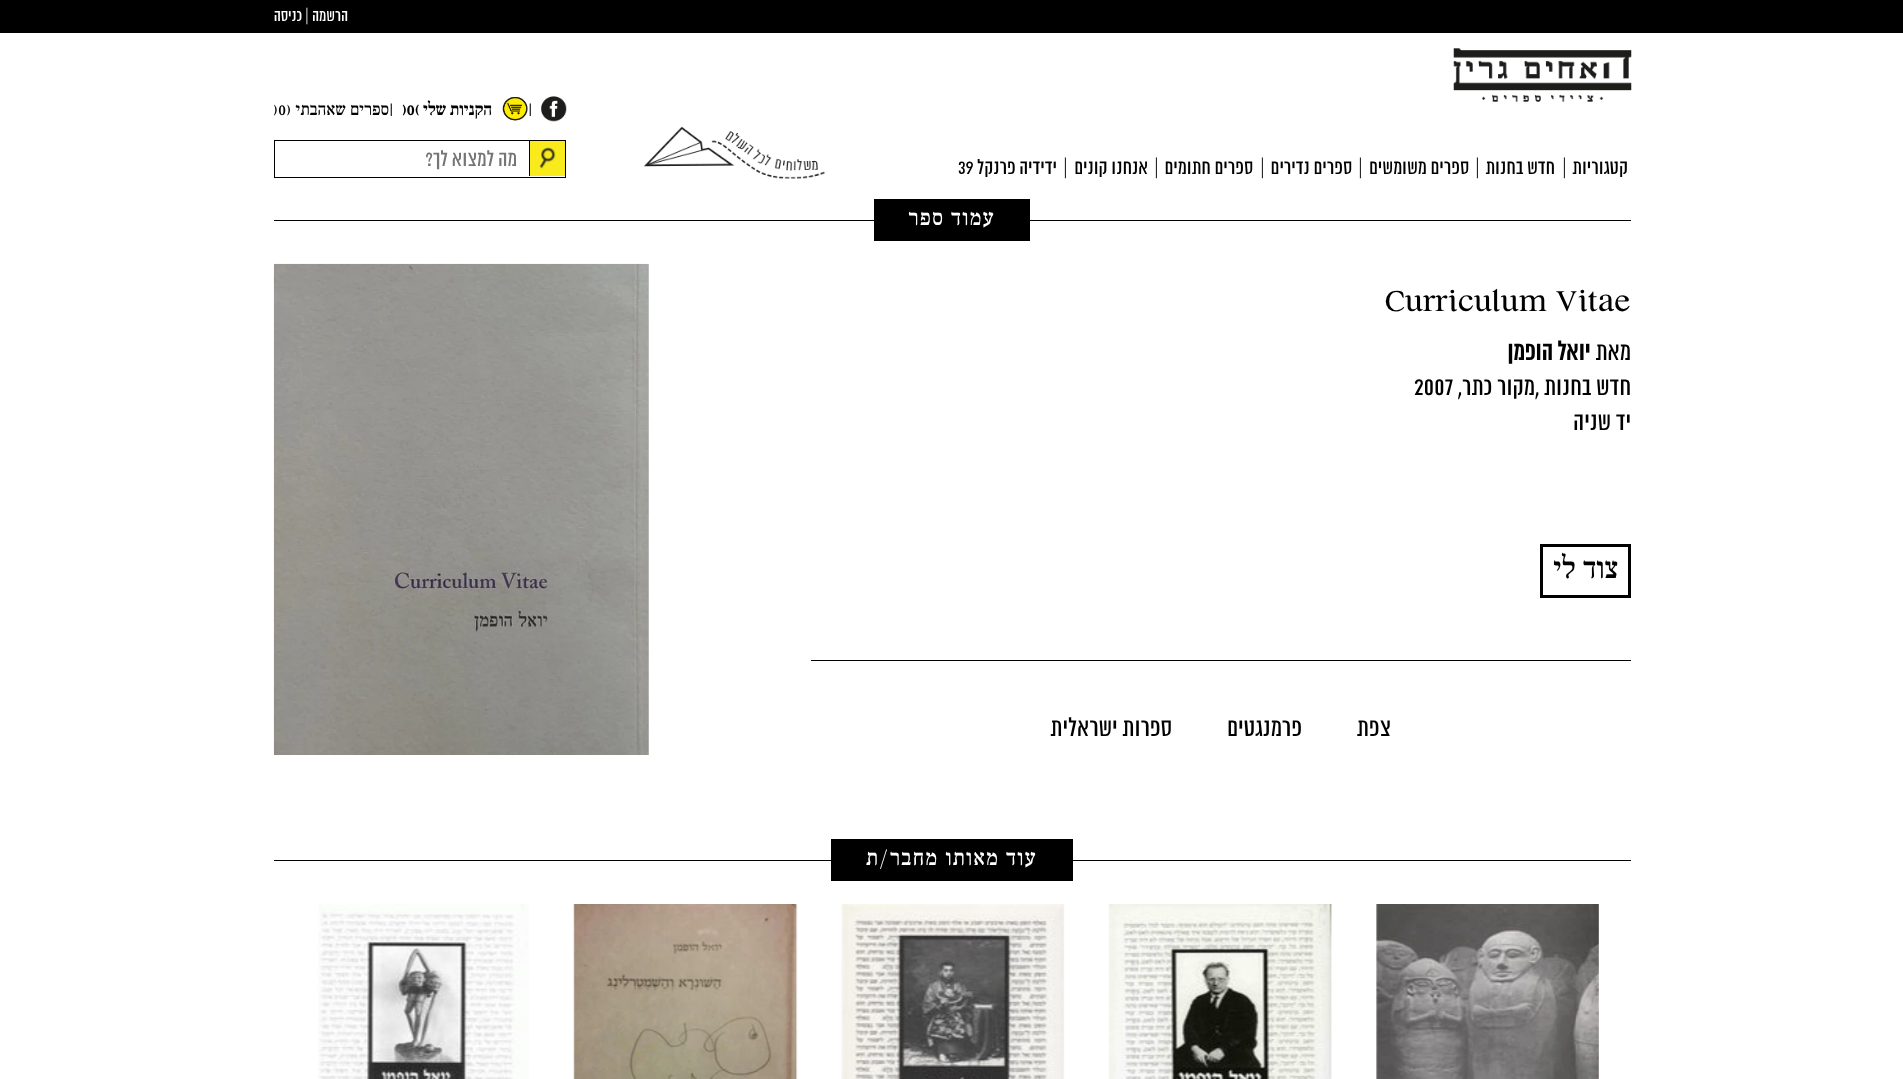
<!DOCTYPE html>
<meta charset="utf-8">
<style>body { margin: 0 } canvas { display: block }</style>
<canvas id="canvas" width="1903" height="1079"></canvas>
<script type="module">
  const canvas = document.getElementById("canvas");
  const ctx = canvas.getContext("2d");
  ctx.miterLimit = 4;
  ctx.fontKerning = "normal";
  async function loadImage(src) {
    const img = new Image();
    img.src = src;
    await img.decode();
    return img;
  }

  ctx.fillStyle = "#ffffff";
  ctx.fillRect(0, 0, 1903, 1079);
  ctx.fillStyle = "#000000";
  ctx.fillRect(0, 0, 1903, 33);
  ctx.direction = "rtl";
  ctx.font = "16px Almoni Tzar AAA";
  ctx.fillStyle = "#ffffff";
  ctx.fillText("הרשמה", 348, 21);
  ctx.direction = "ltr";
  ctx.fillText("|", 305, 21);
  ctx.direction = "rtl";
  ctx.fillText("כניסה", 302, 21);
  ctx.drawImage(await loadImage("img1.png"), 1453, 48, 179, 54);
  ctx.font = "20px Almoni Tzar AAA";
  ctx.fillStyle = "#000000";
  ctx.fillText("קטגוריות", 1628, 174);
  ctx.direction = "ltr";
  ctx.fillText("|", 1562, 174);
  ctx.direction = "rtl";
  ctx.fillText("חדש בחנות", 1555, 174);
  ctx.direction = "ltr";
  ctx.fillText("|", 1475, 174);
  ctx.direction = "rtl";
  ctx.fillText("ספרים משומשים", 1469, 174);
  ctx.direction = "ltr";
  ctx.fillText("|", 1358, 174);
  ctx.direction = "rtl";
  ctx.fillText("ספרים נדירים", 1352, 174);
  ctx.direction = "ltr";
  ctx.fillText("|", 1260, 174);
  ctx.direction = "rtl";
  ctx.fillText("ספרים חתומים", 1253, 174);
  ctx.direction = "ltr";
  ctx.fillText("|", 1154, 174);
  ctx.direction = "rtl";
  ctx.fillText("אנחנו קונים", 1148, 174);
  ctx.direction = "ltr";
  ctx.fillText("|", 1063, 174);
  ctx.direction = "rtl";
  ctx.fillText("ידידיה פרנקל", 1057, 174);
  ctx.direction = "ltr";
  ctx.fillText("39", 958, 174);
  ctx.drawImage(await loadImage("img2.png"), 644, 126, 181, 53);
  ctx.drawImage(await loadImage("img3.png"), 541, 96, 26, 26);
  ctx.font = "17.5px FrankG";
  ctx.fillText("|", 528, 115);
  ctx.drawImage(await loadImage("img4.png"), 502, 97, 26, 24);
  ctx.direction = "rtl";
  ctx.font = "bold 17.5px FrankG";
  ctx.fillText("הקניות שלי", 492, 115);
  ctx.direction = "ltr";
  ctx.fillText(")0(", 402, 115);
  ctx.font = "17.5px FrankG";
  ctx.fillText("|", 389, 115);
  ctx.direction = "rtl";
  ctx.fillText("ספרים שאהבתי (", 389, 115);
  ctx.direction = "ltr";
  ctx.fillText("0", 278, 115);
  ctx.fillText(")", 273, 115);
  ctx.strokeStyle = "#000000";
  ctx.strokeRect(274.5, 140.5, 291, 37);
  ctx.fillStyle = "#f9eb1b";
  ctx.fillRect(530, 141, 35, 35);
  ctx.drawImage(await loadImage("img5.png"), 539, 147, 17, 22);
  ctx.fillStyle = "#000000";
  ctx.fillRect(529, 141, 1, 35);
  ctx.direction = "rtl";
  ctx.font = "21.25px Almoni Tzar AAA";
  ctx.fillStyle = "#757575";
  ctx.fillText("מה למצוא לך?", 517, 166);
  ctx.fillStyle = "#000000";
  ctx.fillRect(274, 220, 1357, 1);
  ctx.fillRect(874, 199, 156, 42);
  ctx.letterSpacing = "1.25px";
  ctx.font = "22.5px FrankG";
  ctx.fillStyle = "#ffffff";
  ctx.fillText("עמוד ספר", 995, 225);
  ctx.letterSpacing = "0px";
  ctx.direction = "ltr";
  ctx.font = "35px FrankG";
  ctx.fillStyle = "#000000";
  ctx.fillText("Curriculum Vitae", 1385, 311);
  ctx.direction = "rtl";
  ctx.font = "25px Almoni Tzar AAA";
  ctx.fillText("מאת", 1631, 360);
  ctx.font = "bold 25px Almoni Tzar AAA";
  ctx.fillText("יואל הופמן", 1590, 360);
  ctx.font = "25px Almoni Tzar AAA";
  ctx.fillText("חדש בחנות", 1631, 395);
  ctx.fillText("מקור", 1535, 395);
  ctx.fillText("כתר,", 1492, 395);
  ctx.direction = "ltr";
  ctx.fillText("2007", 1414, 395);
  ctx.fillText(",", 1535, 395);
  ctx.direction = "rtl";
  ctx.fillText("יד שניה", 1631, 430);
  ctx.drawImage(await loadImage("img6.png"), 273, 263, 376, 492);
  ctx.lineWidth = 3;
  ctx.strokeRect(1541.5, 545.5, 88, 51);
  ctx.font = "30px FrankG";
  ctx.fillText("צוד לי", 1618, 578);
  ctx.fillRect(811, 660, 820, 1);
  ctx.font = "25px Almoni Tzar AAA";
  ctx.fillText("צפת", 1391, 736);
  ctx.fillText("פרמנגטים", 1302, 736);
  ctx.fillText("ספרות ישראלית", 1172, 736);
  ctx.fillRect(274, 860, 1357, 1);
  ctx.fillRect(831, 839, 242, 42);
  ctx.letterSpacing = "1.25px";
  ctx.font = "22.5px FrankG";
  ctx.fillStyle = "#ffffff";
  ctx.fillText("עוד מאותו מחבר/ת", 1037, 865);
  ctx.drawImage(await loadImage("img7.png"), 1376, 904, 223, 175);
  ctx.drawImage(await loadImage("img8.png"), 1108, 904, 224, 175);
  ctx.drawImage(await loadImage("img9.png"), 841, 904, 224, 175);
  ctx.drawImage(await loadImage("img10.png"), 573, 904, 225, 175);
  ctx.drawImage(await loadImage("img11.png"), 318, 904, 211, 175);
</script>
